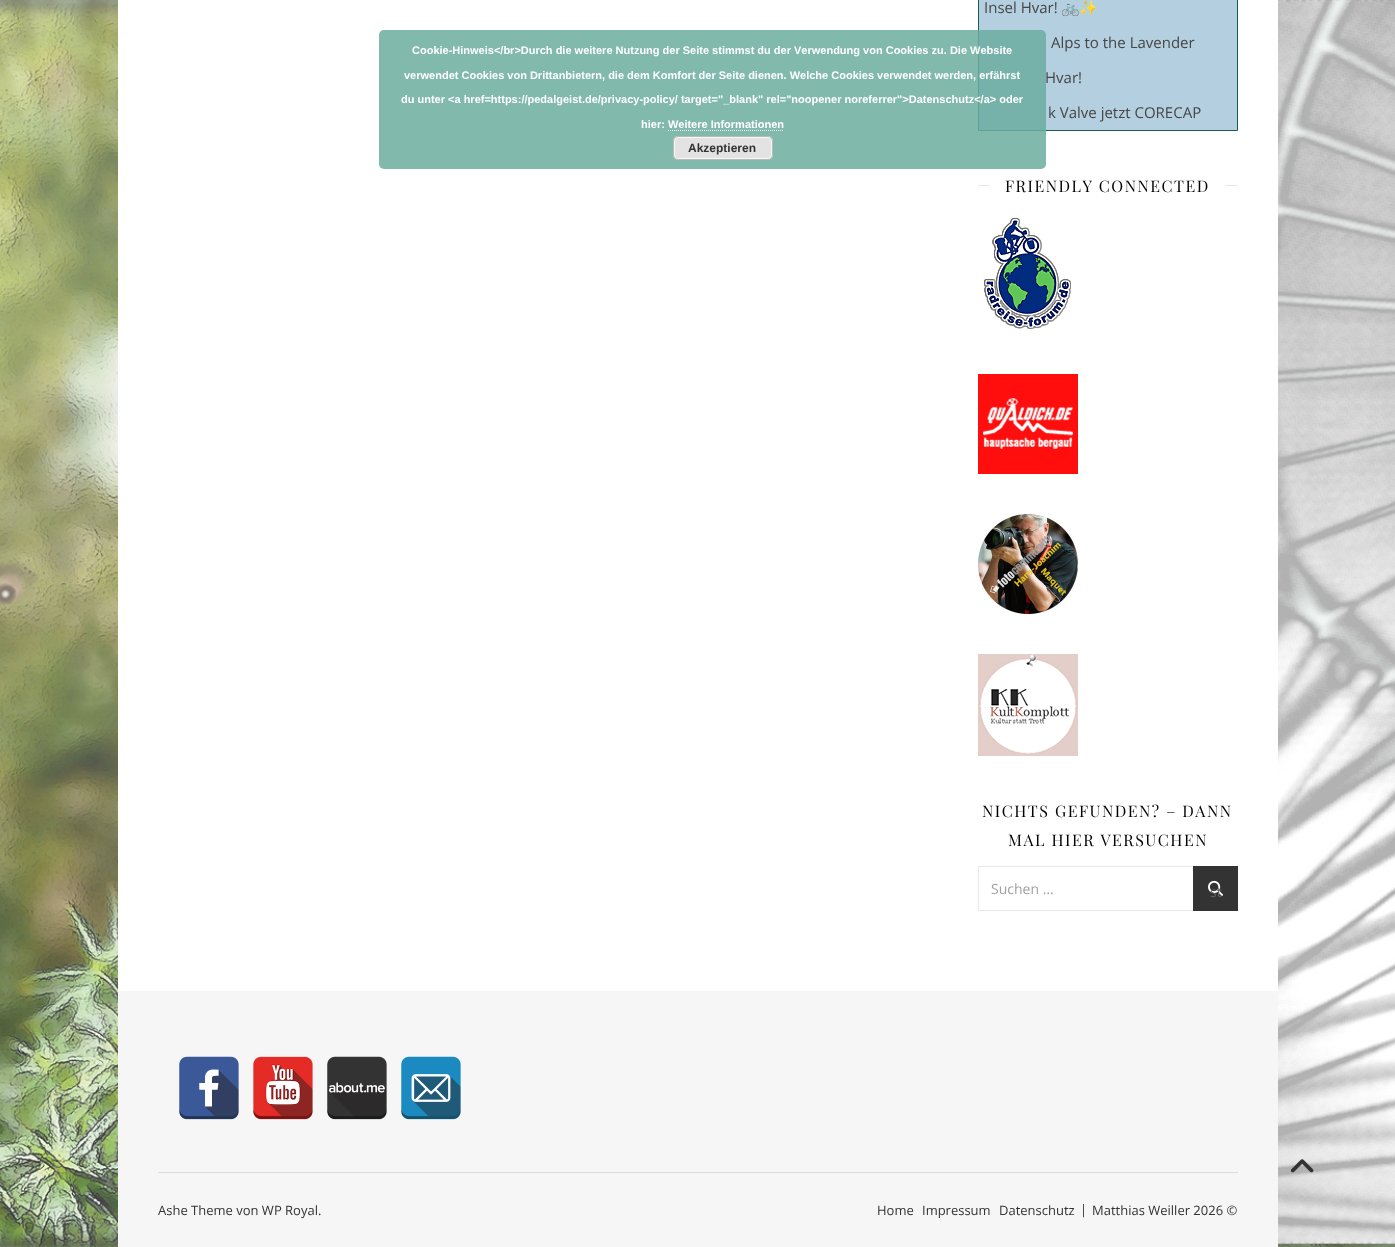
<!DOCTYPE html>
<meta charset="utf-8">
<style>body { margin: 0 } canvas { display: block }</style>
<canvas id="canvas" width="1395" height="1247"></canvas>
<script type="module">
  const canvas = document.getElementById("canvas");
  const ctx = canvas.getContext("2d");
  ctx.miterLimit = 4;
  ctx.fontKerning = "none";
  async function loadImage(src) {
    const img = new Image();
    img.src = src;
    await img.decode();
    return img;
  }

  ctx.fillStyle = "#ffffff";
  ctx.fillRect(0, 0, 1395, 1247);
  ctx.drawImage(await loadImage("img1.png"), 0, 0, 1395, 1247);
  ctx.fillRect(118, 0, 1160, 991);
  ctx.fillStyle = "#b4cfe0";
  ctx.beginPath();
  ctx.rect(978.5, -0.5, 259, 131);
  ctx.fill();
  ctx.strokeStyle = "#185e55";
  ctx.stroke();
  ctx.font = "15px Open Sans";
  ctx.fillStyle = "#464646";
  ctx.fillText("Insel Hvar!", 984, 13);
  ctx.font = "15px Noto Color Emoji";
  ctx.fillText("🚲✨", 1061, 13);
  ctx.font = "15px Open Sans";
  ctx.fillText("Alps to the Lavender", 1051, 48);
  ctx.fillText("Hvar!", 1045, 83);
  ctx.fillText("k Valve jetzt CORECAP", 1048, 118);
  ctx.fillStyle = "#e8e8e8";
  ctx.fillRect(978, 185, 12, 1);
  ctx.letterSpacing = "1.5px";
  ctx.font = "16px Playfair Display";
  ctx.fillStyle = "#030303";
  ctx.fillText("FRIENDLY CONNECTED", 1005, 192);
  ctx.fillStyle = "#e8e8e8";
  ctx.fillRect(1225, 185, 13, 1);
  ctx.drawImage(await loadImage("img2.png"), 984, 218, 87, 111);
  ctx.drawImage(await loadImage("img3.png"), 978, 374, 100, 100);
  ctx.drawImage(await loadImage("img4.png"), 978, 514, 100, 100);
  ctx.drawImage(await loadImage("img5.png"), 978, 654, 100, 102);
  ctx.fillStyle = "#030303";
  ctx.fillText("NICHTS GEFUNDEN? – DANN", 982, 817);
  ctx.fillText("MAL HIER VERSUCHEN", 1008, 846);
  ctx.strokeStyle = "#e8e8e8";
  ctx.strokeRect(978.5, 866.5, 259, 44);
  ctx.letterSpacing = "0px";
  ctx.font = "14px Open Sans";
  ctx.fillStyle = "#a1a1a1";
  ctx.fillText("Suchen …", 991, 894);
  ctx.fillStyle = "#333333";
  ctx.fillRect(1193, 866, 45, 45);
  ctx.drawImage(await loadImage("img6.png"), 1208, 880, 15, 16);
  ctx.fillStyle = "#636363";
  ctx.fillText("st", 1210, 897);
  ctx.fillStyle = "#f6f6f6";
  ctx.fillRect(118, 991, 1160, 256);
  ctx.drawImage(await loadImage("img7.png"), 1290, 1159, 24, 14);
  ctx.fillStyle = "#e0dbdb";
  ctx.fillRect(158, 1172, 1080, 1);
  ctx.drawImage(await loadImage("img8.png"), 179, 1056, 60, 64);
  ctx.drawImage(await loadImage("img9.png"), 253, 1056, 60, 64);
  ctx.drawImage(await loadImage("img10.png"), 327, 1056, 60, 64);
  ctx.drawImage(await loadImage("img11.png"), 401, 1056, 60, 64);
  ctx.font = "13px Open Sans";
  ctx.fillStyle = "#333333";
  ctx.fillText("Ashe Theme von WP Royal.", 158, 1215);
  ctx.fillText("Home", 877, 1215);
  ctx.fillText("Impressum", 922, 1215);
  ctx.fillText("Datenschutz", 999, 1215);
  ctx.fillText("|", 1080, 1214);
  ctx.fillText("Matthias Weiller 2026 ©", 1092, 1215);
  ctx.fillStyle = "rgba(107, 173, 159, 0.85)";
  ctx.beginPath();
  ctx.roundRect(379, 30, 667, 139, 5);
  ctx.fill();
  ctx.font = "bold 11px Liberation Sans";
  ctx.fillStyle = "#ffffff";
  ctx.fillText("Cookie-Hinweis<\/br>Durch die weitere Nutzung der Seite stimmst du der Verwendung von Cookies zu. Die Website", 412, 54);
  ctx.fillText("verwendet Cookies von Drittanbietern, die dem Komfort der Seite dienen. Welche Cookies verwendet werden, erfährst", 404, 79);
  ctx.fillText("du unter <a href=https://pedalgeist.de/privacy-policy/ target=\"_blank\" rel=\"noopener noreferrer\">Datenschutz<\/a> oder", 401, 103);
  ctx.fillText("hier: Weitere Informationen", 641, 128);
  ctx.beginPath();
  ctx.moveTo(668, 130.5);
  ctx.lineTo(784, 130.5);
  ctx.strokeStyle = "#ffffff";
  ctx.setLineDash([1, 1]);
  ctx.stroke();
  ctx.fillStyle = "#e3e3e3";
  ctx.beginPath();
  ctx.roundRect(673, 136, 100, 24, 5);
  ctx.fill();
  ctx.beginPath();
  ctx.roundRect(674.5, 137.5, 97, 21, 3.5);
  ctx.strokeStyle = "#f6f6f6";
  ctx.setLineDash([]);
  ctx.stroke();
  ctx.beginPath();
  ctx.roundRect(673.5, 136.5, 99, 23, 4.5);
  ctx.strokeStyle = "#bbbbbb";
  ctx.stroke();
  ctx.font = "bold 12px Liberation Sans";
  ctx.fillStyle = "#333333";
  ctx.fillText("Akzeptieren", 688, 152);
</script>
